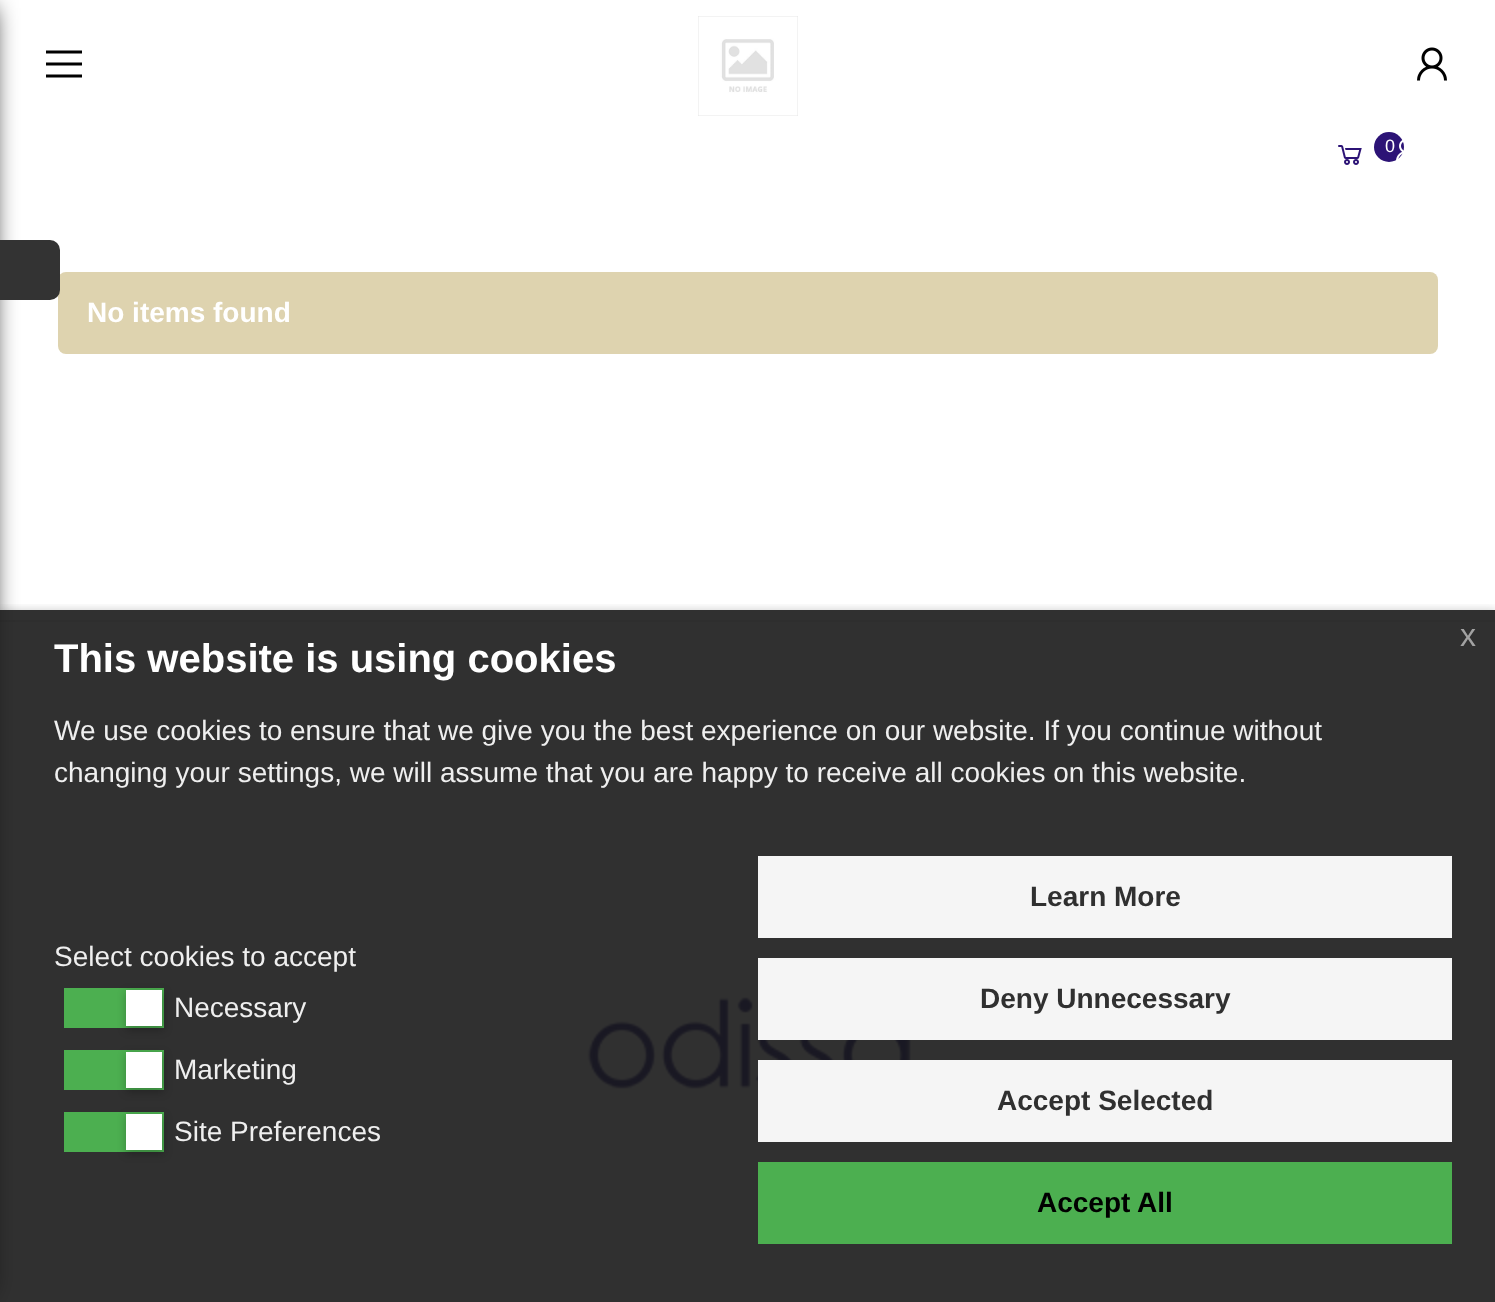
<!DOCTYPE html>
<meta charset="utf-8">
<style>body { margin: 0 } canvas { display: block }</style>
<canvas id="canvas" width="1495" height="1302"></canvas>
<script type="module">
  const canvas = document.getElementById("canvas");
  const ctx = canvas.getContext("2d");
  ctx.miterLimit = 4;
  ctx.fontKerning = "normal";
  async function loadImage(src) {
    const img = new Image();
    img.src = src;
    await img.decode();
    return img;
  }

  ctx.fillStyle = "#ffffff";
  ctx.fillRect(0, 0, 1495, 1302);
  ctx.fillStyle = "#000000";
  ctx.beginPath();
  ctx.moveTo(46, 50.5);
  ctx.lineTo(46, 53.5);
  ctx.lineTo(82, 53.5);
  ctx.lineTo(82, 50.5);
  ctx.closePath();
  ctx.moveTo(46, 62.5);
  ctx.lineTo(46, 65.5);
  ctx.lineTo(82, 65.5);
  ctx.lineTo(82, 62.5);
  ctx.closePath();
  ctx.moveTo(46, 74.5);
  ctx.lineTo(46, 77.5);
  ctx.lineTo(82, 77.5);
  ctx.lineTo(82, 74.5);
  ctx.closePath();
  ctx.fill();
  ctx.drawImage(await loadImage("img1.png"), 698, 16, 100, 100);
  ctx.drawImage(await loadImage("img2.png"), 1417, 47, 30, 34);
  ctx.drawImage(await loadImage("img3.png"), 1338, 145, 24, 20);
  ctx.fillStyle = "#2c1376";
  ctx.beginPath();
  ctx.arc(1389, 147, 15, 0, Math.PI * 2);
  ctx.fill();
  ctx.font = "18px Liberation Sans";
  ctx.fillStyle = "#ffffff";
  ctx.fillText("0", 1385, 152);
  ctx.drawImage(await loadImage("img4.png"), 1396, 140, 8, 21);
  ctx.fillStyle = "#e8e8e8";
  ctx.fillRect(0, 620, 1495, 2);
  ctx.fillStyle = "#000000";
  ctx.filter = "blur(12px)";
  ctx.beginPath();
  ctx.rect(-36, 8, 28, 1286);
  ctx.fill();
  ctx.filter = "none";
  ctx.fillStyle = "#ded3af";
  ctx.beginPath();
  ctx.roundRect(58, 272, 1380, 82, 8);
  ctx.fill();
  ctx.fillStyle = "#333333";
  ctx.beginPath();
  ctx.roundRect(0, 240, 60, 60, [0, 10, 10, 0]);
  ctx.fill();
  ctx.font = "bold 28px Liberation Sans";
  ctx.fillStyle = "#ffffff";
  ctx.fillText("No items found", 87, 322);
  ctx.drawImage(await loadImage("img5.png"), 587, 997, 324, 92);
  ctx.save();
  ctx.beginPath();
  ctx.rect(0, 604, 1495, 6);
  ctx.clip();
  ctx.fillStyle = "rgba(0, 0, 0, 0.2)";
  ctx.filter = "blur(5px)";
  ctx.beginPath();
  ctx.rect(0, 610, 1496, 692);
  ctx.fill();
  ctx.filter = "none";
  ctx.restore();
  ctx.fillStyle = "rgba(25, 25, 25, 0.9)";
  ctx.fillRect(0, 610, 1495, 692);
  ctx.font = "32px Liberation Sans";
  ctx.fillStyle = "#a2a2a2";
  ctx.fillText("x", 1460, 646);
  ctx.font = "bold 40px Liberation Sans";
  ctx.fillStyle = "#ffffff";
  ctx.fillText("This website is using cookies", 54, 672);
  ctx.font = "28px Liberation Sans";
  ctx.fillStyle = "#efefef";
  ctx.fillText("We use cookies to ensure that we give you the best experience on our website. If you continue without", 54, 740);
  ctx.fillText("changing your settings, we will assume that you are happy to receive all cookies on this website.", 54, 782);
  ctx.fillText("Select cookies to accept", 54, 966);
  ctx.fillStyle = "#4caf50";
  ctx.fillRect(64, 988, 100, 40);
  ctx.fillStyle = "rgba(0, 0, 0, 0.25)";
  ctx.filter = "blur(4px)";
  ctx.beginPath();
  ctx.rect(126, 992, 38, 38);
  ctx.fill();
  ctx.filter = "none";
  ctx.fillStyle = "#ffffff";
  ctx.fillRect(126, 990, 36, 36);
  ctx.fillStyle = "#efefef";
  ctx.fillText("Necessary", 174, 1017);
  ctx.fillStyle = "#4caf50";
  ctx.fillRect(64, 1050, 100, 40);
  ctx.fillStyle = "rgba(0, 0, 0, 0.25)";
  ctx.filter = "blur(4px)";
  ctx.beginPath();
  ctx.rect(126, 1054, 38, 38);
  ctx.fill();
  ctx.filter = "none";
  ctx.fillStyle = "#ffffff";
  ctx.fillRect(126, 1052, 36, 36);
  ctx.fillStyle = "#efefef";
  ctx.fillText("Marketing", 174, 1079);
  ctx.fillStyle = "#4caf50";
  ctx.fillRect(64, 1112, 100, 40);
  ctx.fillStyle = "rgba(0, 0, 0, 0.25)";
  ctx.filter = "blur(4px)";
  ctx.beginPath();
  ctx.rect(126, 1116, 38, 38);
  ctx.fill();
  ctx.filter = "none";
  ctx.fillStyle = "#ffffff";
  ctx.fillRect(126, 1114, 36, 36);
  ctx.fillStyle = "#efefef";
  ctx.fillText("Site Preferences", 174, 1141);
  ctx.fillStyle = "#f5f5f5";
  ctx.fillRect(758, 856, 694, 82);
  ctx.font = "bold 28px Liberation Sans";
  ctx.fillStyle = "#303030";
  ctx.fillText("Learn More", 1030, 906);
  ctx.fillStyle = "#f5f5f5";
  ctx.fillRect(758, 958, 694, 82);
  ctx.fillStyle = "#303030";
  ctx.fillText("Deny Unnecessary", 980, 1008);
  ctx.fillStyle = "#f5f5f5";
  ctx.fillRect(758, 1060, 694, 82);
  ctx.fillStyle = "#303030";
  ctx.fillText("Accept Selected", 997, 1110);
  ctx.fillStyle = "#4caf50";
  ctx.fillRect(758, 1162, 694, 82);
  ctx.fillStyle = "#000000";
  ctx.fillText("Accept All", 1037, 1212);
</script>
